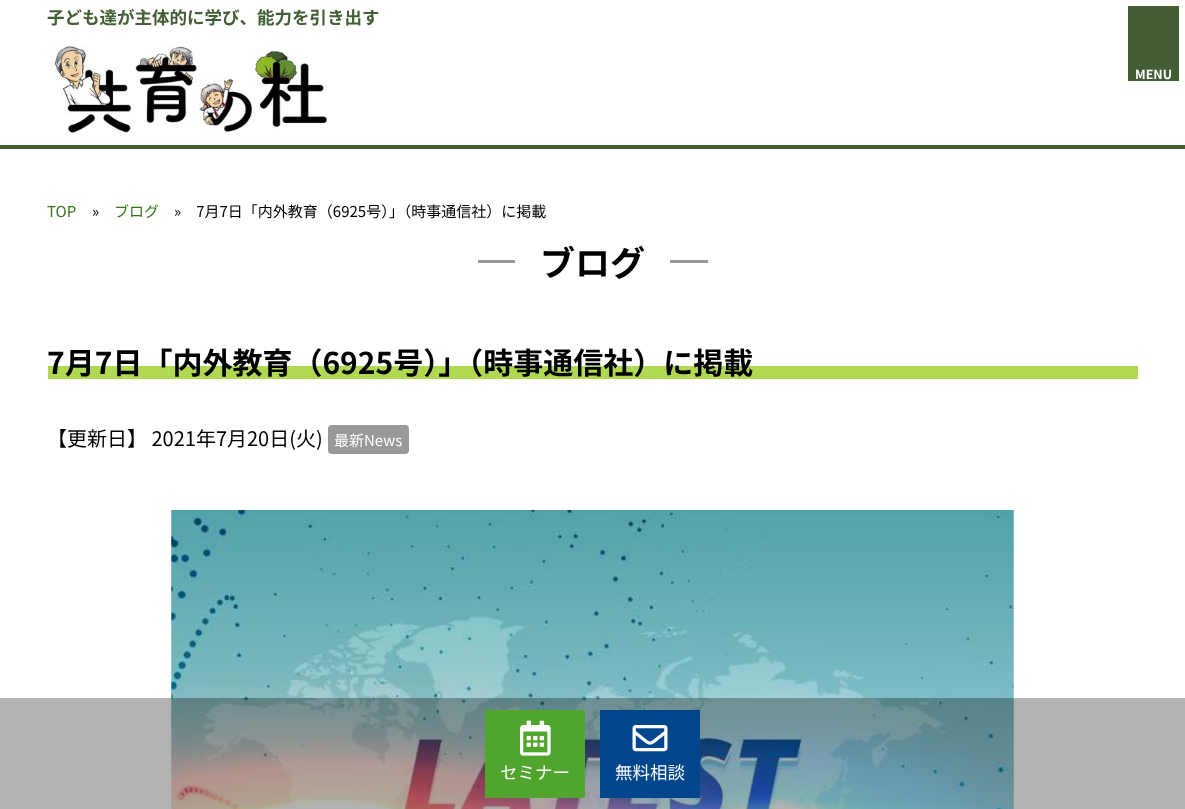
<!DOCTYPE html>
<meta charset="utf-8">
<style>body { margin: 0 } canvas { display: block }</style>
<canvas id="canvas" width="1185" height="809"></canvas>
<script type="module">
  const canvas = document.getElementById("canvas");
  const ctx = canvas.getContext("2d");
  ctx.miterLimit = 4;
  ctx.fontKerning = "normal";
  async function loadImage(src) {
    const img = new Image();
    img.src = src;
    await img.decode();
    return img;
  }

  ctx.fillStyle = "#ffffff";
  ctx.fillRect(0, 0, 1185, 809);
  ctx.fillStyle = "#435e34";
  ctx.fillRect(0, 145, 1185, 4);
  ctx.font = "bold 17.5px Noto Sans JP";
  ctx.fillText("子ども達が主体的に学び、能力を引き出す", 47, 24);
  ctx.drawImage(await loadImage("img1.png"), 54, 45, 274, 88);
  ctx.fillRect(1128, 6, 51, 75);
  ctx.font = "bold 12.5px Noto Sans JP";
  ctx.fillStyle = "#ffffff";
  ctx.fillText("MENU", 1135, 79);
  ctx.font = "15px Noto Sans JP";
  ctx.fillStyle = "#38761d";
  ctx.fillText("TOP", 47, 217);
  ctx.fillStyle = "#000000";
  ctx.fillText("»", 92, 217);
  ctx.fillStyle = "#38761d";
  ctx.fillText("ブログ", 114, 217);
  ctx.fillStyle = "#000000";
  ctx.fillText("»　7月7日「内外教育（6925号）」（時事通信社）に掲載", 174, 217);
  ctx.fillStyle = "#999999";
  ctx.fillRect(478, 260, 37, 3);
  ctx.font = "bold 35px Noto Sans JP";
  ctx.fillStyle = "#000000";
  ctx.fillText("ブログ", 540, 276);
  ctx.fillStyle = "#999999";
  ctx.fillRect(670, 260, 38, 3);
  ctx.fillStyle = "#b0d951";
  ctx.fillRect(48, 366, 1090, 13);
  ctx.font = "bold 30px Noto Sans JP";
  ctx.fillStyle = "#000000";
  ctx.fillText("7月7日「内外教育（6925号）」（時事通信社）に掲載", 47, 374);
  ctx.font = "20px Noto Sans JP";
  ctx.fillText("【更新日】 2021年7月20日(火)", 47, 446);
  ctx.fillStyle = "#999999";
  ctx.beginPath();
  ctx.roundRect(328, 425, 81, 29, 4);
  ctx.fill();
  ctx.font = "15px Noto Sans JP";
  ctx.fillStyle = "#ffffff";
  ctx.fillText("最新News", 334, 446);
  ctx.drawImage(await loadImage("img2.png"), 171, 510, 843, 299);
  ctx.fillStyle = "rgba(0, 0, 0, 0.3)";
  ctx.fillRect(0, 698, 1185, 111);
  ctx.fillStyle = "#50a52c";
  ctx.fillRect(485, 710, 100, 88);
  ctx.drawImage(await loadImage("img3.png"), 520, 720, 31, 36);
  ctx.font = "17.5px Noto Sans JP";
  ctx.fillStyle = "#ffffff";
  ctx.fillText("セミナー", 500, 779);
  ctx.fillStyle = "#00468c";
  ctx.fillRect(600, 710, 100, 88);
  ctx.drawImage(await loadImage("img4.png"), 632, 725, 36, 27);
  ctx.fillStyle = "#ffffff";
  ctx.fillText("無料相談", 615, 779);
</script>
